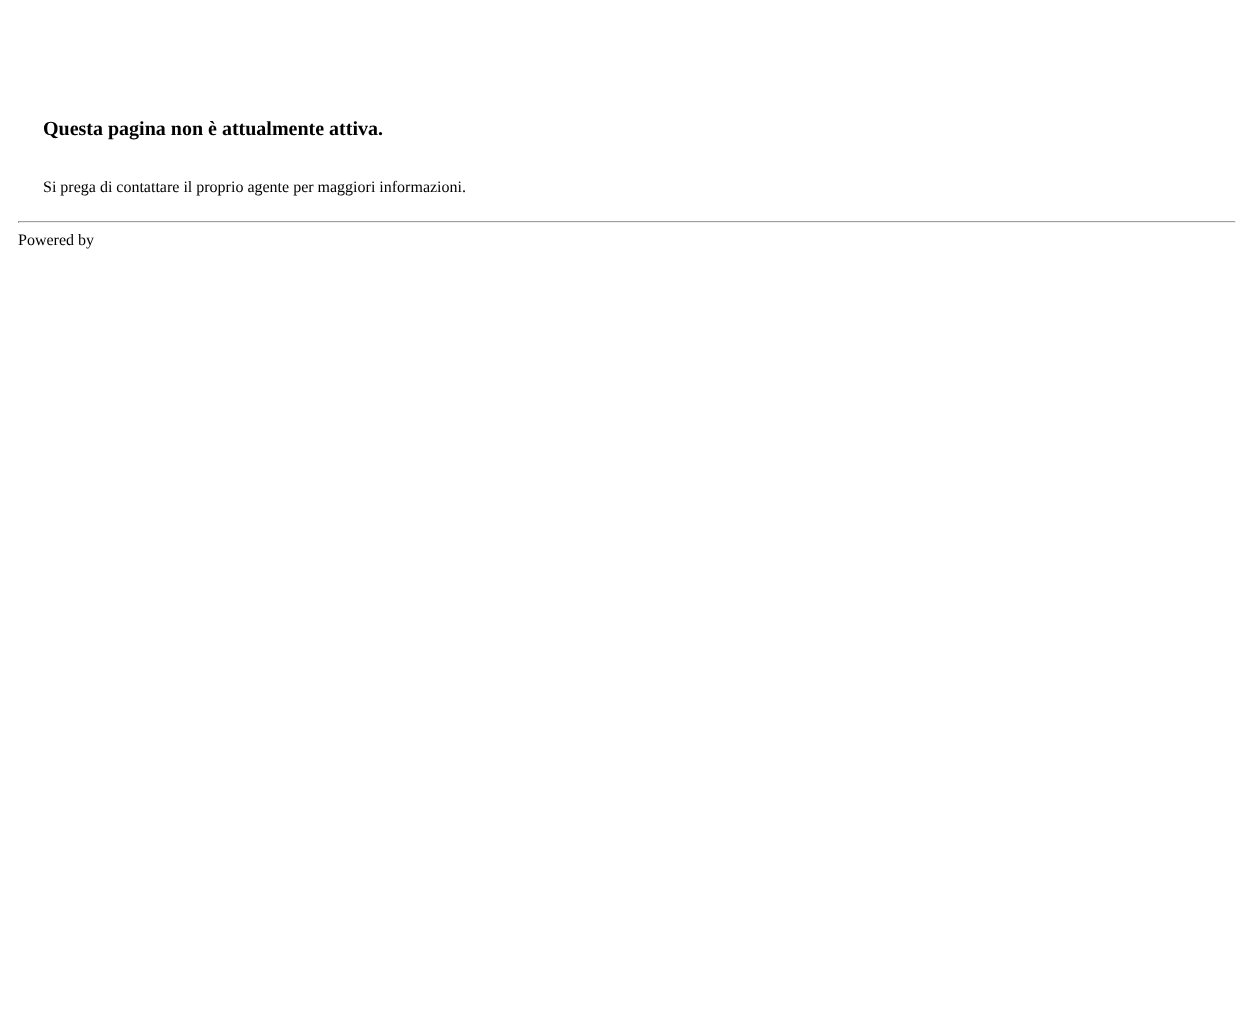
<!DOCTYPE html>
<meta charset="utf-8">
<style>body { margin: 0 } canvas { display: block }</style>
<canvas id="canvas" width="1254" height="1027"></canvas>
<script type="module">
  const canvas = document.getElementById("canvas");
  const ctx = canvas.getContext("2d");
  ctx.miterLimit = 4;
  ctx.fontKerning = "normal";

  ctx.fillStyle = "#ffffff";
  ctx.fillRect(0, 0, 1254, 1027);
  ctx.font = "bold 20px Liberation Serif";
  ctx.fillStyle = "#000000";
  ctx.fillText("Questa pagina non è attualmente attiva.", 43, 135);
  ctx.font = "16px Liberation Serif";
  ctx.fillText("Si prega di contattare il proprio agente per maggiori informazioni.", 43, 192);
  ctx.fillStyle = "#9f9f9f";
  ctx.fillRect(18, 221, 1218, 1);
  ctx.fillStyle = "#eeeeee";
  ctx.fillRect(1235, 221, 1, 2);
  ctx.fillRect(18, 222, 1218, 1);
  ctx.fillStyle = "#9f9f9f";
  ctx.fillRect(18, 221, 1, 2);
  ctx.fillStyle = "#000000";
  ctx.fillText("Powered by", 18, 245);
</script>
